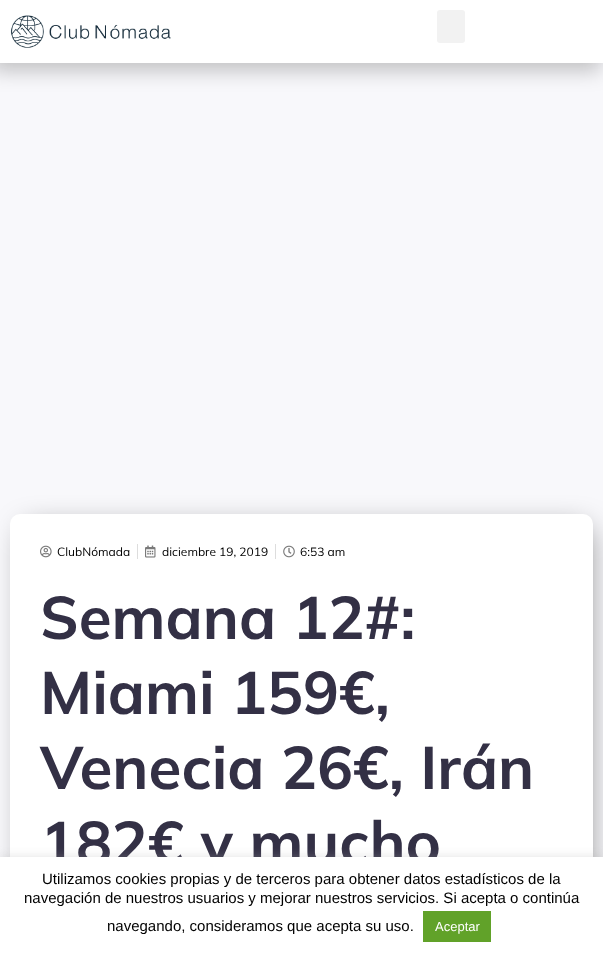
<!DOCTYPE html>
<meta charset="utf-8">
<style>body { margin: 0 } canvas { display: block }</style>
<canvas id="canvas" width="603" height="959"></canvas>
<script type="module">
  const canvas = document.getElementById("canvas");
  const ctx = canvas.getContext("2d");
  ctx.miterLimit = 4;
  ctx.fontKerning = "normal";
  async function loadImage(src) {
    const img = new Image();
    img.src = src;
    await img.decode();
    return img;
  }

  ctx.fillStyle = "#f8f8fb";
  ctx.fillRect(0, 0, 603, 959);
  ctx.fillStyle = "rgba(0, 0, 0, 0.22)";
  ctx.filter = "blur(10px)";
  ctx.beginPath();
  ctx.rect(-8, 2, 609, 69);
  ctx.fill();
  ctx.filter = "none";
  ctx.fillStyle = "#ffffff";
  ctx.fillRect(0, 0, 603, 63);
  ctx.drawImage(await loadImage("img1.png"), 10, 15, 161, 33);
  ctx.fillStyle = "#f2f2f2";
  ctx.beginPath();
  ctx.roundRect(437, 10, 28, 33, 3);
  ctx.fill();
  ctx.fillStyle = "rgba(0, 0, 0, 0.5)";
  ctx.filter = "blur(15px)";
  ctx.beginPath();
  ctx.rect(25, 529, 563, 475);
  ctx.fill();
  ctx.filter = "none";
  ctx.fillStyle = "#ffffff";
  ctx.beginPath();
  ctx.roundRect(10, 514, 583, 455, 10);
  ctx.fill();
  ctx.drawImage(await loadImage("img2.png"), 40, 545, 12, 13);
  ctx.font = "12px Mulish";
  ctx.fillStyle = "#000000";
  ctx.fillText("ClubNómada", 57, 556);
  ctx.fillStyle = "#dddddd";
  ctx.fillRect(137, 544, 1, 15);
  ctx.drawImage(await loadImage("img3.png"), 145, 545, 11, 13);
  ctx.fillStyle = "#000000";
  ctx.fillText("diciembre 19, 2019", 162, 556);
  ctx.fillStyle = "#dddddd";
  ctx.fillRect(275, 544, 1, 15);
  ctx.drawImage(await loadImage("img4.png"), 283, 545, 12, 13);
  ctx.fillStyle = "#000000";
  ctx.fillText("6:53 am", 300, 556);
  ctx.font = "bold 60px Mulish";
  ctx.fillStyle = "#333045";
  ctx.fillText("Semana 12#:", 40, 639);
  ctx.fillText("Miami 159€,", 40, 714);
  ctx.fillText("Venecia 26€, Irán", 40, 789);
  ctx.fillText("182€ y mucho", 40, 864);
  ctx.fillStyle = "rgba(172, 171, 171, 0.3)";
  ctx.filter = "blur(5px)";
  ctx.beginPath();
  ctx.rect(0, 856, 603, 102);
  ctx.fill();
  ctx.filter = "none";
  ctx.fillStyle = "#ffffff";
  ctx.fillRect(0, 857, 603, 102);
  ctx.font = "15px Liberation Sans";
  ctx.fillStyle = "#000000";
  ctx.fillText("Utilizamos cookies propias y de terceros para obtener datos estadísticos de la", 42, 884);
  ctx.fillText("navegación de nuestros usuarios y mejorar nuestros servicios. Si acepta o continúa", 24, 903);
  ctx.fillText("navegando, consideramos que acepta su uso.", 107, 931);
  ctx.fillStyle = "#61a229";
  ctx.fillRect(423, 911, 68, 31);
  ctx.font = "13px Liberation Sans";
  ctx.fillStyle = "#ffffff";
  ctx.fillText("Aceptar", 435, 931);
</script>
